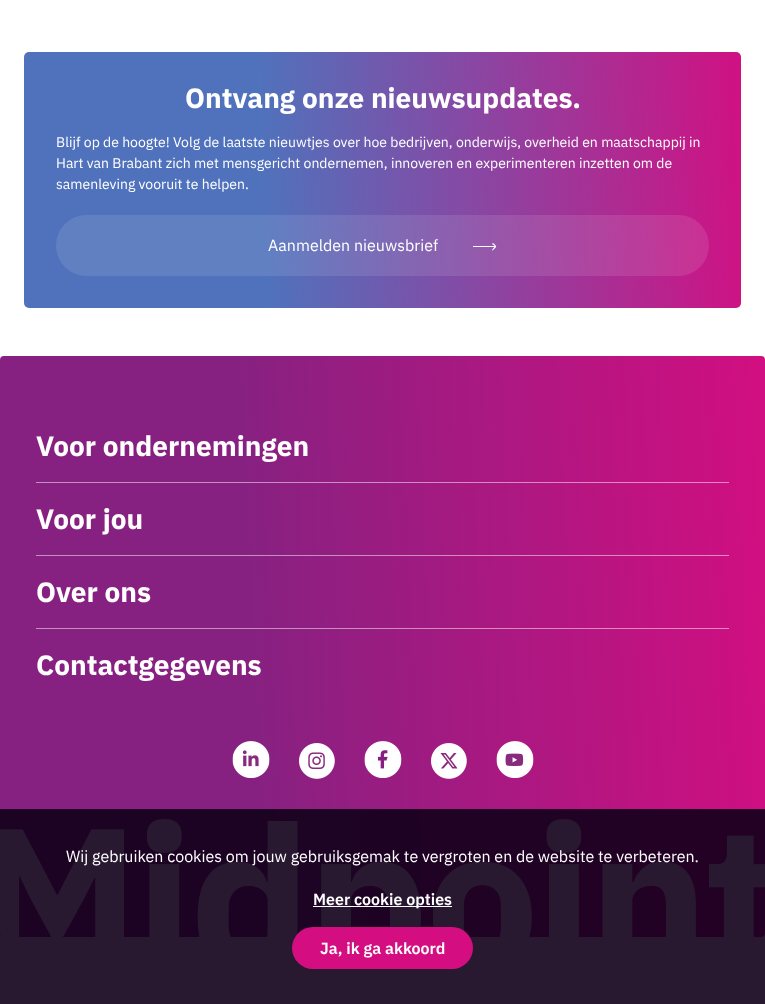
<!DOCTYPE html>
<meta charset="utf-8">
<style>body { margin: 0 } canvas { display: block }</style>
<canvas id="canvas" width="765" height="1004"></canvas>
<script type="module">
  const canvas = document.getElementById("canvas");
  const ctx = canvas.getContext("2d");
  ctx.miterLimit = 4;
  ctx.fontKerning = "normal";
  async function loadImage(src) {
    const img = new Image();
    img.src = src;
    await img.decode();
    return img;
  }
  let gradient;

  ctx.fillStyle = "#ffffff";
  ctx.fillRect(0, 0, 765, 1004);
  gradient = ctx.createLinearGradient(19, 198, 760, 161);
  gradient.addColorStop(0.33, "#5072bc");
  gradient.addColorStop(1, "#d40e81");
  ctx.fillStyle = gradient;
  ctx.beginPath();
  ctx.roundRect(24, 52, 717, 256, 5);
  ctx.fill();
  ctx.font = "bold 28px IBM Plex Sans";
  ctx.fillStyle = "#ffffff";
  ctx.fillText("Ontvang onze nieuwsupdates.", 185, 108);
  ctx.font = "14px IBM Plex Sans";
  ctx.fillText("Blijf op de hoogte! Volg de laatste nieuwtjes over hoe bedrijven, onderwijs, overheid en maatschappij in", 56, 147);
  ctx.fillText("Hart van Brabant zich met mensgericht ondernemen, innoveren en experimenteren inzetten om de", 56, 168);
  ctx.fillText("samenleving vooruit te helpen.", 56, 189);
  ctx.fillStyle = "rgba(255, 255, 255, 0.1)";
  ctx.beginPath();
  ctx.roundRect(56, 215, 653, 61, 30.5);
  ctx.fill();
  ctx.font = "16px IBM Plex Sans";
  ctx.fillStyle = "#ffffff";
  ctx.fillText("Aanmelden nieuwsbrief", 268, 251);
  ctx.save();
  ctx.beginPath();
  ctx.rect(473, 242, 24, 9);
  ctx.clip();
  ctx.beginPath();
  ctx.moveTo(496, 247);
  ctx.bezierCurveTo(497, 246, 493, 243, 493, 243);
  ctx.lineTo(492, 244);
  ctx.lineTo(495, 246);
  ctx.lineTo(492, 250);
  ctx.bezierCurveTo(492, 252, 495, 248, 496, 247);
  ctx.closePath();
  ctx.moveTo(449, 247);
  ctx.lineTo(496, 247);
  ctx.lineTo(496, 246);
  ctx.lineTo(449, 246);
  ctx.closePath();
  ctx.fill();
  ctx.restore();
  gradient = ctx.createLinearGradient(-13, 666, 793, 626);
  gradient.addColorStop(0.33, "#872181");
  gradient.addColorStop(1, "#d40e81");
  ctx.fillStyle = gradient;
  ctx.beginPath();
  ctx.roundRect(0, 356, 765, 581, 4);
  ctx.fill();
  gradient = ctx.createLinearGradient(-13, 666, 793, 626);
  gradient.addColorStop(0.33, "#c390c0");
  gradient.addColorStop(1, "#ea87c0");
  ctx.fillStyle = gradient;
  ctx.fillRect(36, 628, 693, 1);
  ctx.fillRect(36, 555, 693, 1);
  ctx.fillRect(36, 482, 693, 1);
  ctx.font = "bold 28px IBM Plex Sans";
  ctx.fillStyle = "#ffffff";
  ctx.fillText("Voor ondernemingen", 36, 456);
  ctx.fillText("Voor jou", 36, 529);
  ctx.fillText("Over ons", 36, 602);
  ctx.fillText("Contactgegevens", 36, 675);
  ctx.drawImage(await loadImage("img1.png"), 232, 741, 38, 37);
  ctx.drawImage(await loadImage("img2.png"), 299, 743, 36, 36);
  ctx.drawImage(await loadImage("img3.png"), 364, 741, 38, 37);
  ctx.drawImage(await loadImage("img4.png"), 431, 743, 36, 36);
  ctx.drawImage(await loadImage("img5.png"), 496, 741, 38, 37);
  ctx.drawImage(await loadImage("img6.png"), 0, 819, 765, 118);
  ctx.fillStyle = "rgba(17, 0, 25, 0.9)";
  ctx.fillRect(0, 809, 765, 195);
  ctx.font = "16px IBM Plex Sans";
  ctx.fillStyle = "#ffffff";
  ctx.fillText("Wij gebruiken cookies om jouw gebruiksgemak te vergroten en de website te verbeteren.", 66, 862);
  ctx.fillRect(313, 906, 139, 1);
  ctx.font = "600 16px IBM Plex Sans";
  ctx.fillText("Meer cookie opties", 313, 905);
  gradient = ctx.createLinearGradient(111, 948, 473, 948);
  gradient.addColorStop(0, "#5072bc");
  gradient.addColorStop(0.12, "#872181");
  gradient.addColorStop(0.25, "#b30c76");
  gradient.addColorStop(0.38, "#b30c76");
  gradient.addColorStop(0.5, "#d40e81");
  gradient.addColorStop(1, "#d40e81");
  ctx.fillStyle = gradient;
  ctx.beginPath();
  ctx.roundRect(292, 927, 181, 42, 21);
  ctx.fill();
  ctx.fillStyle = "#ffffff";
  ctx.fillText("Ja, ik ga akkoord", 320, 954);
</script>
